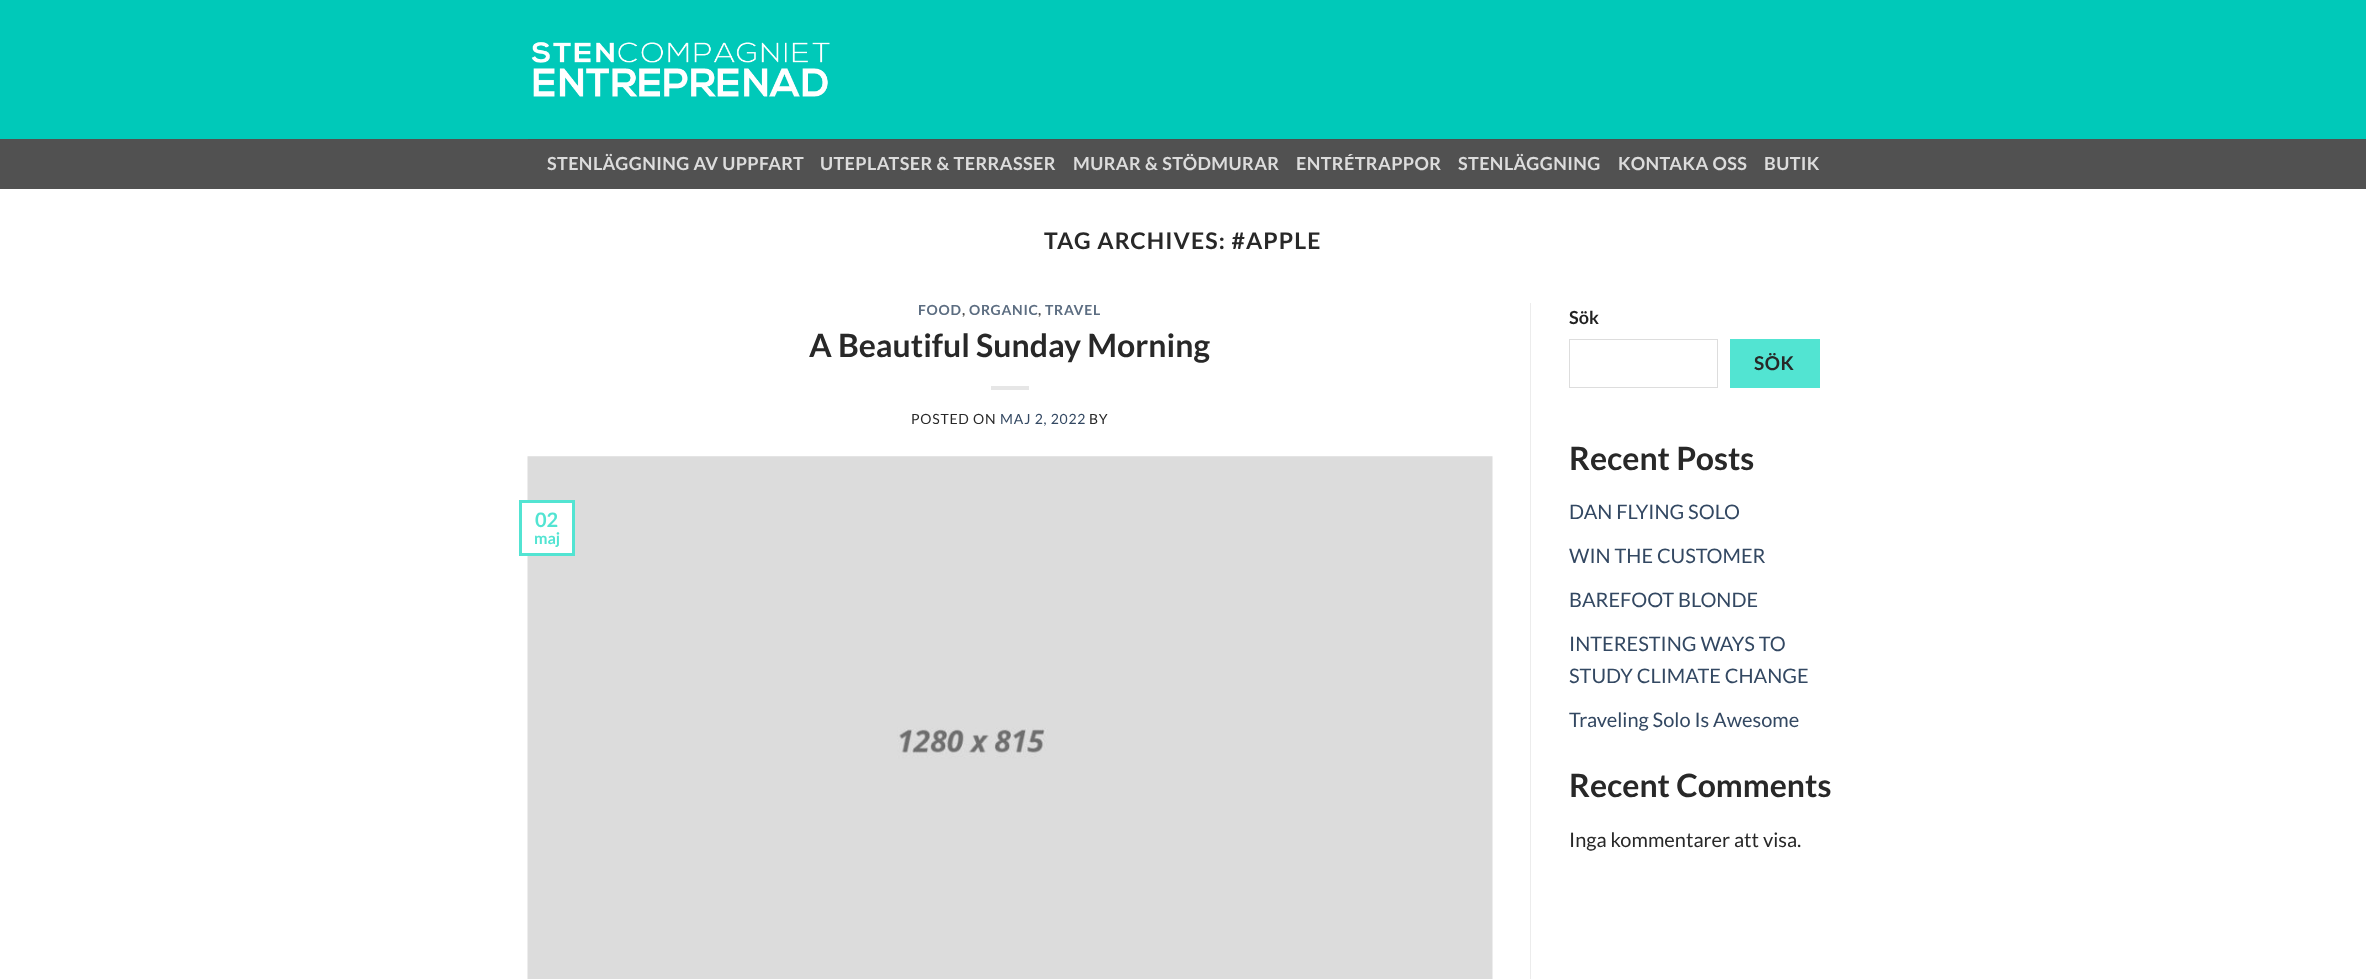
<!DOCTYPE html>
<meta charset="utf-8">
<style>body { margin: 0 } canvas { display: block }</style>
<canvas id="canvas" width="2366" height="979"></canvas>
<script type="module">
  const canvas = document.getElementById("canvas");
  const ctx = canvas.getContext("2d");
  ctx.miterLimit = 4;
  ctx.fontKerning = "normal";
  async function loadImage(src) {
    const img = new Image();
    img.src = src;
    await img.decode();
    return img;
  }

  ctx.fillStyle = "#ffffff";
  ctx.fillRect(0, 0, 2366, 979);
  ctx.fillStyle = "#00c9b9";
  ctx.fillRect(0, 0, 2366, 139);
  ctx.drawImage(await loadImage("img1.png"), 531, 42, 299, 55);
  ctx.fillStyle = "#515151";
  ctx.fillRect(0, 139, 2366, 50);
  ctx.fillStyle = "#4d4d4d";
  ctx.fillRect(528, 139, 1312, 1);
  ctx.letterSpacing = "0.4px";
  ctx.font = "bold 18px Lato";
  ctx.fillStyle = "#dcdcdc";
  ctx.fillText("STENLÄGGNING AV UPPFART", 547, 170);
  ctx.fillText("UTEPLATSER & TERRASSER", 820, 170);
  ctx.fillText("MURAR & STÖDMURAR", 1073, 170);
  ctx.fillText("ENTRÉTRAPPOR", 1296, 170);
  ctx.fillText("STENLÄGGNING", 1458, 170);
  ctx.fillText("KONTAKA OSS", 1618, 170);
  ctx.fillText("BUTIK", 1764, 170);
  ctx.letterSpacing = "1.1px";
  ctx.font = "bold 23px Lato";
  ctx.fillStyle = "#282828";
  ctx.fillText("TAG ARCHIVES: #APPLE", 1044, 249);
  ctx.letterSpacing = "0.75px";
  ctx.font = "bold 14px Lato";
  ctx.fillStyle = "#5c6d81";
  ctx.fillText("FOOD", 918, 315);
  ctx.fillStyle = "#535353";
  ctx.fillText(",", 962, 315);
  ctx.fillStyle = "#5c6d81";
  ctx.fillText("ORGANIC", 969, 315);
  ctx.fillStyle = "#535353";
  ctx.fillText(",", 1038, 315);
  ctx.fillStyle = "#5c6d81";
  ctx.fillText("TRAVEL", 1045, 315);
  ctx.letterSpacing = "0px";
  ctx.font = "bold 32px Lato";
  ctx.fillStyle = "#282828";
  ctx.fillText("A Beautiful Sunday Morning", 809, 357);
  ctx.fillStyle = "#e6e6e6";
  ctx.fillRect(991, 386, 38, 4);
  ctx.letterSpacing = "0.75px";
  ctx.font = "14px Lato";
  ctx.fillStyle = "#282828";
  ctx.fillText("POSTED ON", 911, 424);
  ctx.fillStyle = "#334862";
  ctx.fillText("MAJ 2, 2022", 1000, 424);
  ctx.fillStyle = "#282828";
  ctx.fillText("BY", 1089, 424);
  ctx.drawImage(await loadImage("img2.png"), 527, 456, 966, 523);
  ctx.fillStyle = "#ffffff";
  ctx.fillRect(527, 503, 45, 50);
  ctx.strokeStyle = "#52e4d2";
  ctx.lineWidth = 3;
  ctx.strokeRect(520.5, 501.5, 53, 53);
  ctx.letterSpacing = "0px";
  ctx.font = "bold 20px Lato";
  ctx.fillStyle = "#52e4d2";
  ctx.fillText("02", 535, 527);
  ctx.font = "bold 16px Lato";
  ctx.fillText("maj", 534, 544);
  ctx.fillStyle = "#ececec";
  ctx.fillRect(1530, 303, 1, 676);
  ctx.font = "bold 18px Lato";
  ctx.fillStyle = "#222222";
  ctx.fillText("Sök", 1569, 324);
  ctx.strokeStyle = "#dddddd";
  ctx.lineWidth = 1;
  ctx.strokeRect(1569.5, 339.5, 148, 48);
  ctx.fillStyle = "#52e4d2";
  ctx.fillRect(1730, 339, 90, 49);
  ctx.letterSpacing = "0.5px";
  ctx.font = "bold 19px Lato";
  ctx.fillStyle = "#282828";
  ctx.fillText("SÖK", 1754, 370);
  ctx.letterSpacing = "0px";
  ctx.font = "bold 32px Lato";
  ctx.fillText("Recent Posts", 1569, 470);
  ctx.font = "20px Lato";
  ctx.fillStyle = "#334862";
  ctx.fillText("DAN FLYING SOLO", 1569, 519);
  ctx.fillText("WIN THE CUSTOMER", 1569, 563);
  ctx.fillText("BAREFOOT BLONDE", 1569, 607);
  ctx.fillText("INTERESTING WAYS TO", 1569, 651);
  ctx.fillText("STUDY CLIMATE CHANGE", 1569, 683);
  ctx.fillText("Traveling Solo Is Awesome", 1569, 727);
  ctx.font = "bold 32px Lato";
  ctx.fillStyle = "#282828";
  ctx.fillText("Recent Comments", 1569, 797);
  ctx.font = "20px Lato";
  ctx.fillText("Inga kommentarer att visa.", 1569, 847);
</script>
